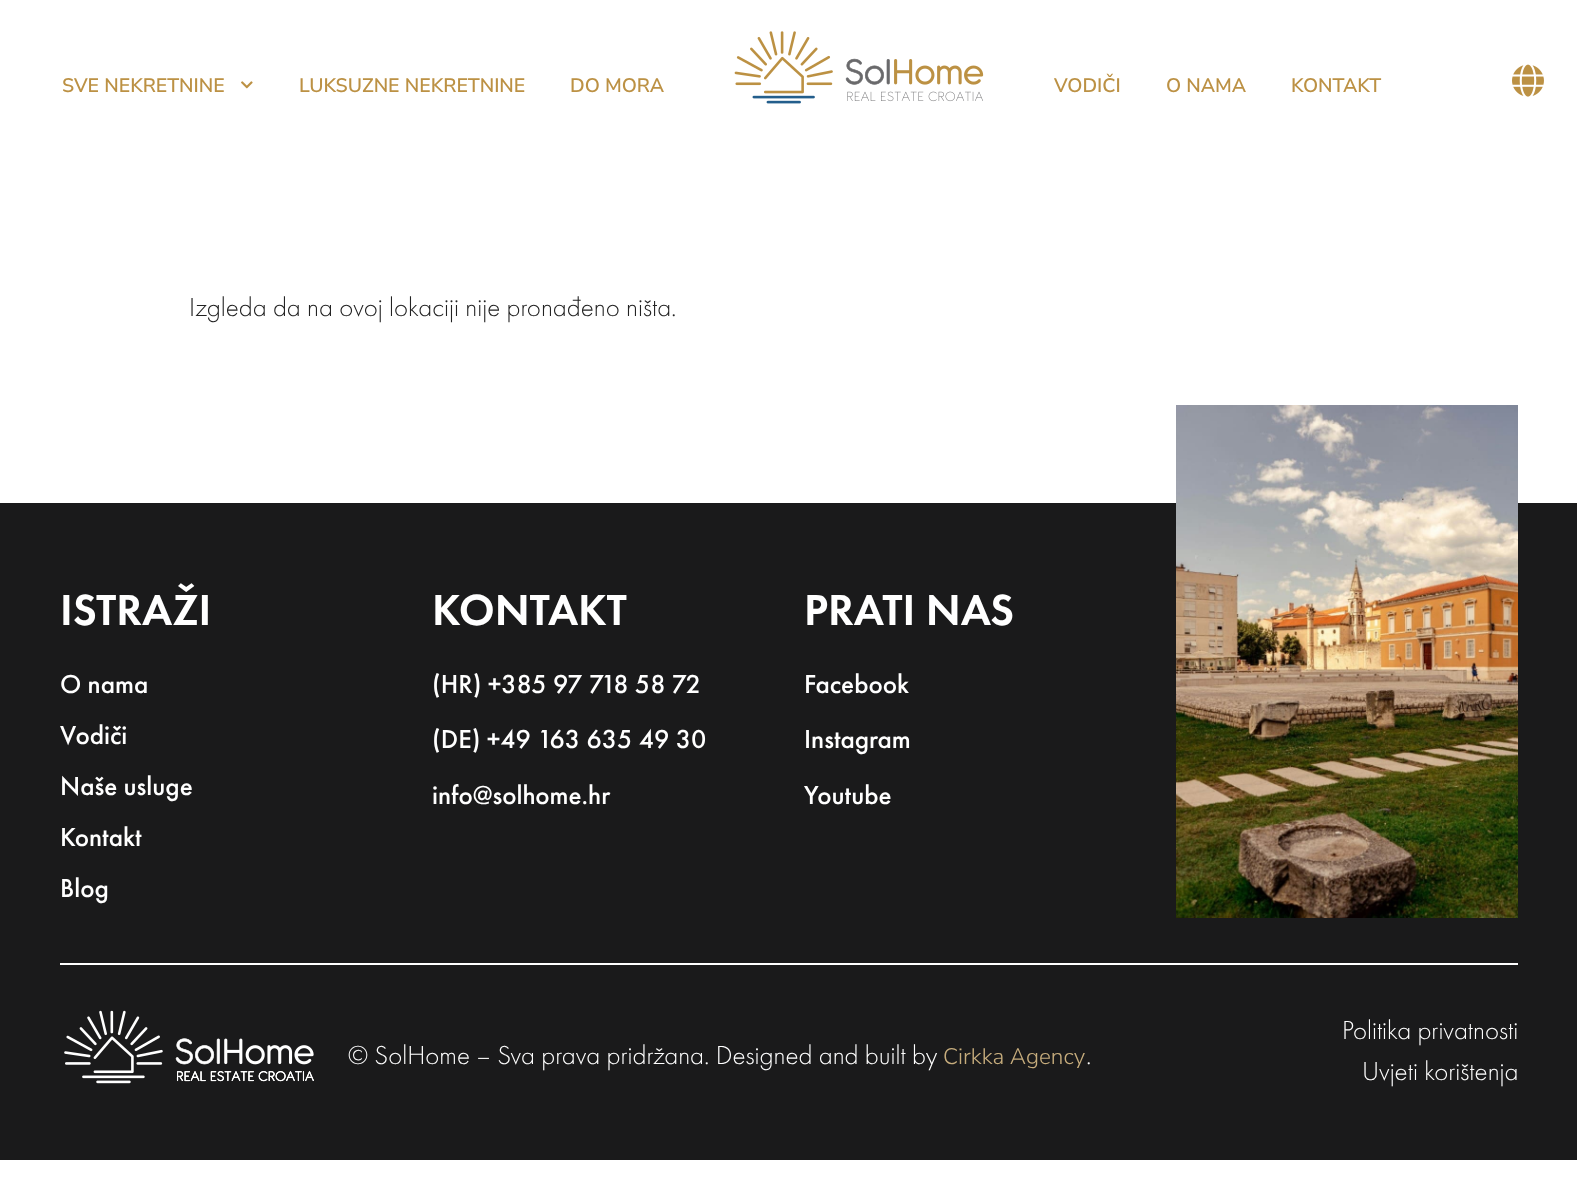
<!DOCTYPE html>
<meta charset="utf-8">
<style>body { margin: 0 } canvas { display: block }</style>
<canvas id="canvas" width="1577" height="1182"></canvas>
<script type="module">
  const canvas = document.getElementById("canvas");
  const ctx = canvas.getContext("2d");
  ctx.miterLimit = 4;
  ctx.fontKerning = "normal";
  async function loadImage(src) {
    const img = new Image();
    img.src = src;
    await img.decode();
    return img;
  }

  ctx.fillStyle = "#ffffff";
  ctx.fillRect(0, 0, 1577, 1182);
  ctx.font = "600 19.5px Nunito Sans";
  ctx.fillStyle = "#bc9144";
  ctx.fillText("SVE NEKRETNINE", 62, 92);
  ctx.drawImage(await loadImage("img1.png"), 241, 81, 12, 8);
  ctx.fillText("LUKSUZNE NEKRETNINE", 299, 92);
  ctx.fillText("DO MORA", 570, 92);
  ctx.drawImage(await loadImage("img2.png"), 734, 31, 250, 73);
  ctx.fillText("VODIČI", 1054, 92);
  ctx.fillText("O NAMA", 1166, 92);
  ctx.fillText("KONTAKT", 1291, 92);
  ctx.drawImage(await loadImage("img3.png"), 1512, 64, 32, 33);
  ctx.font = "300 27px Futura PT";
  ctx.fillStyle = "#222222";
  ctx.fillText("Izgleda da na ovoj lokaciji nije pronađeno ništa.", 189, 316);
  ctx.fillStyle = "#1a1a1b";
  ctx.fillRect(0, 503, 1577, 657);
  ctx.font = "600 45px Futura PT";
  ctx.fillStyle = "#ffffff";
  ctx.fillText("ISTRAŽI", 60, 625);
  ctx.font = "500 27px Futura PT";
  ctx.fillText("O nama", 60, 693);
  ctx.fillText("Vodiči", 60, 744);
  ctx.fillText("Naše usluge", 60, 795);
  ctx.fillText("Kontakt", 60, 846);
  ctx.fillText("Blog", 60, 897);
  ctx.font = "600 45px Futura PT";
  ctx.fillText("KONTAKT", 432, 625);
  ctx.font = "500 27px Futura PT";
  ctx.fillText("(HR) +385 97 718 58 72", 432, 693);
  ctx.fillText("(DE) +49 163 635 49 30", 432, 748);
  ctx.fillText("info@solhome.hr", 432, 804);
  ctx.font = "600 45px Futura PT";
  ctx.fillText("PRATI NAS", 804, 625);
  ctx.font = "500 27px Futura PT";
  ctx.fillText("Facebook", 804, 693);
  ctx.fillText("Instagram", 804, 748);
  ctx.fillText("Youtube", 804, 804);
  ctx.drawImage(await loadImage("img4.png"), 1176, 405, 342, 513);
  ctx.fillRect(60, 963, 1458, 2);
  ctx.drawImage(await loadImage("img5.png"), 64, 1010, 250, 74);
  ctx.font = "300 27px Futura PT";
  ctx.fillText("© SolHome – Sva prava pridržana. Designed and built by", 348, 1064);
  ctx.font = "300 22.5px Nunito Sans";
  ctx.fillStyle = "#c7ad7d";
  ctx.fillText("Cirkka Agency", 943, 1064);
  ctx.font = "300 27px Futura PT";
  ctx.fillStyle = "#ffffff";
  ctx.fillText(".", 1086, 1064);
  ctx.fillText("Politika privatnosti", 1342, 1039);
  ctx.fillText("Uvjeti korištenja", 1362, 1080);
</script>
